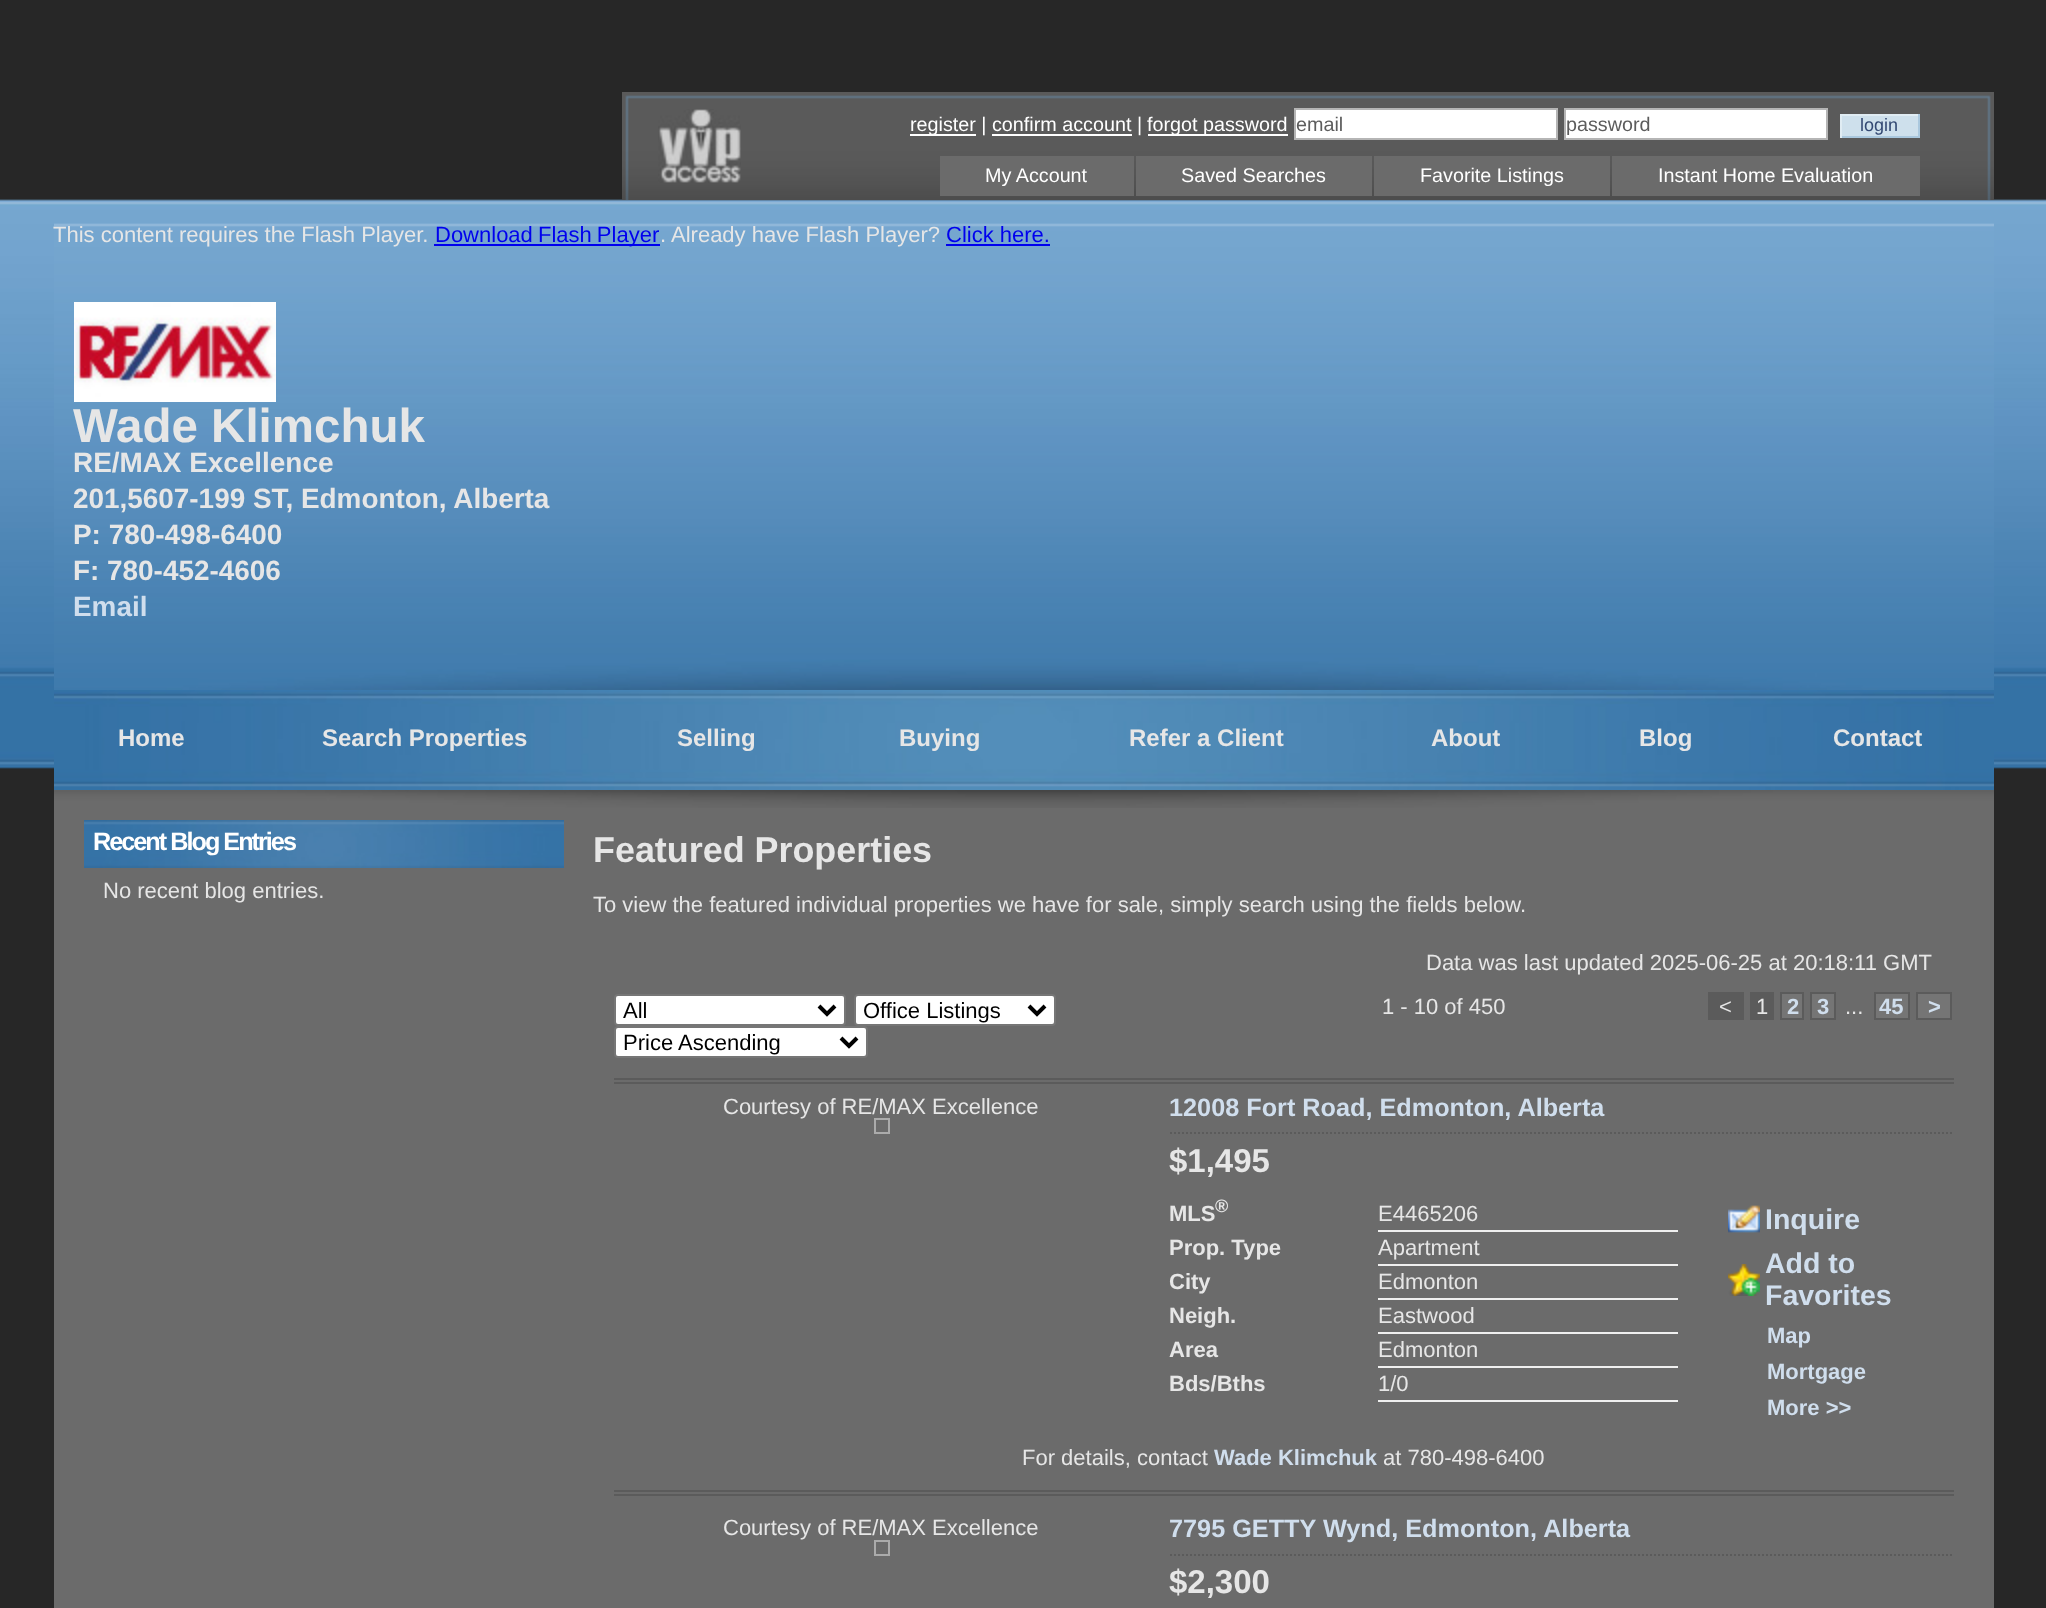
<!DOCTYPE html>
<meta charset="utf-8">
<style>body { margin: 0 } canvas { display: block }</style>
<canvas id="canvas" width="2046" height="1608"></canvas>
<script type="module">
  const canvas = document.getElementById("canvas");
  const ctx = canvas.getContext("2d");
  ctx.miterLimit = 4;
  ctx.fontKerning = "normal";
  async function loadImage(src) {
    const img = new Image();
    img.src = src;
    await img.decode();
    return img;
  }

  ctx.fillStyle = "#272727";
  ctx.fillRect(0, 0, 2046, 1608);
  ctx.drawImage(await loadImage("img1.png"), 0, 199, 2046, 570);
  ctx.drawImage(await loadImage("img2.png"), 622, 92, 1372, 108);
  ctx.drawImage(await loadImage("img3.png"), 658, 109, 83, 74);
  ctx.fillStyle = "#ffffff";
  ctx.fillRect(910, 134, 66, 2);
  ctx.font = "19.75px Liberation Sans";
  ctx.fillText("register | confirm account", 910, 131);
  ctx.fillText("|", 1137, 131);
  ctx.fillRect(1148, 134, 140, 2);
  ctx.fillText("forgot password", 1147, 131);
  ctx.beginPath();
  ctx.rect(1295, 109, 262, 30);
  ctx.fill();
  ctx.strokeStyle = "#b5b5b5";
  ctx.lineWidth = 2;
  ctx.stroke();
  ctx.fillStyle = "#5c5c5c";
  ctx.fillText("email", 1296, 131);
  ctx.fillStyle = "#ffffff";
  ctx.beginPath();
  ctx.rect(1565, 109, 262, 30);
  ctx.fill();
  ctx.stroke();
  ctx.fillStyle = "#5c5c5c";
  ctx.fillText("password", 1566, 131);
  ctx.fillStyle = "#cee0ec";
  ctx.fillRect(1842, 116, 76, 20);
  ctx.fillStyle = "#e0ecf3";
  ctx.fillRect(1840, 114, 80, 2);
  ctx.fillStyle = "#aac8de";
  ctx.fillRect(1918, 114, 2, 24);
  ctx.fillRect(1840, 136, 80, 2);
  ctx.fillStyle = "#e0ecf3";
  ctx.fillRect(1840, 114, 2, 24);
  ctx.font = "18px Liberation Sans";
  ctx.fillStyle = "#334973";
  ctx.fillText("login", 1860, 131);
  ctx.fillStyle = "#ffffff";
  ctx.fillRect(992, 134, 140, 2);
  ctx.fillStyle = "#6b6b6b";
  ctx.fillRect(940, 156, 194, 40);
  ctx.font = "19.75px Liberation Sans";
  ctx.fillStyle = "#ffffff";
  ctx.fillText("My Account", 985, 182);
  ctx.fillStyle = "#6b6b6b";
  ctx.fillRect(1136, 156, 236, 40);
  ctx.fillStyle = "#ffffff";
  ctx.fillText("Saved Searches", 1181, 182);
  ctx.fillStyle = "#6b6b6b";
  ctx.fillRect(1374, 156, 236, 40);
  ctx.fillStyle = "#ffffff";
  ctx.fillText("Favorite Listings", 1420, 182);
  ctx.fillStyle = "#6b6b6b";
  ctx.fillRect(1612, 156, 308, 40);
  ctx.fillStyle = "#ffffff";
  ctx.fillText("Instant Home Evaluation", 1658, 182);
  ctx.drawImage(await loadImage("img4.png"), 54, 223, 1940, 467);
  ctx.font = "22px Liberation Sans";
  ctx.fillStyle = "#e6e6e6";
  ctx.fillText("This content requires the Flash Player.", 53, 242);
  ctx.fillStyle = "#0000ee";
  ctx.fillRect(434, 244, 226, 2);
  ctx.wordSpacing = "-1px";
  ctx.fillText("Download Flash Player", 435, 242);
  ctx.wordSpacing = "0px";
  ctx.fillStyle = "#e6e6e6";
  ctx.fillText(". Already have Flash Player?", 660, 242);
  ctx.fillStyle = "#0000ee";
  ctx.fillText("Click here.", 946, 242);
  ctx.fillRect(946, 244, 104, 2);
  ctx.drawImage(await loadImage("img5.png"), 74, 302, 202, 100);
  ctx.font = "bold 47.5px Liberation Sans";
  ctx.fillStyle = "#e6e6e6";
  ctx.fillText("Wade Klimchuk", 73, 442);
  ctx.font = "bold 27.9px Liberation Sans";
  ctx.fillText("RE/MAX Excellence", 73, 472);
  ctx.fillText("201,5607-199 ST, Edmonton, Alberta", 73, 508);
  ctx.fillText("P: 780-498-6400", 73, 544);
  ctx.fillText("F: 780-452-4606", 73, 580);
  ctx.fillStyle = "#d0deed";
  ctx.fillText("Email", 73, 616);
  ctx.drawImage(await loadImage("img6.png"), 54, 690, 1940, 100);
  ctx.font = "bold 24px Liberation Sans";
  ctx.fillStyle = "#e6e6e6";
  ctx.fillText("Home", 118, 746);
  ctx.fillText("Search Properties", 322, 746);
  ctx.fillText("Selling", 677, 746);
  ctx.fillText("Buying", 899, 746);
  ctx.fillText("Refer a Client", 1129, 746);
  ctx.fillText("About", 1431, 746);
  ctx.fillText("Blog", 1639, 746);
  ctx.fillText("Contact", 1833, 746);
  ctx.fillStyle = "#6b6b6b";
  ctx.fillRect(54, 808, 1940, 800);
  ctx.drawImage(await loadImage("img7.png"), 54, 790, 1940, 18);
  ctx.drawImage(await loadImage("img8.png"), 84, 820, 480, 48);
  ctx.letterSpacing = "-2px";
  ctx.font = "bold 25.25px Liberation Sans";
  ctx.fillStyle = "#ffffff";
  ctx.fillText("Recent Blog Entries", 93, 850);
  ctx.letterSpacing = "0px";
  ctx.font = "22px Liberation Sans";
  ctx.fillStyle = "#e6e6e6";
  ctx.fillText("No recent blog entries.", 103, 898);
  ctx.font = "bold 35.9px Liberation Sans";
  ctx.fillText("Featured Properties", 593, 862);
  ctx.font = "22px Liberation Sans";
  ctx.fillText("To view the featured individual properties we have for sale, simply search using the fields below.", 593, 912);
  ctx.fillText("Data was last updated 2025-06-25 at 20:18:11 GMT", 1426, 970);
  ctx.fillStyle = "#ffffff";
  ctx.beginPath();
  ctx.roundRect(615, 995, 230, 30, 3);
  ctx.fill();
  ctx.strokeStyle = "#767676";
  ctx.stroke();
  ctx.beginPath();
  ctx.moveTo(819, 1006);
  ctx.lineTo(827, 1014);
  ctx.lineTo(835, 1006);
  ctx.strokeStyle = "#000000";
  ctx.lineWidth = 4;
  ctx.stroke();
  ctx.fillStyle = "#000000";
  ctx.fillText("All", 623, 1018);
  ctx.fillStyle = "#ffffff";
  ctx.beginPath();
  ctx.roundRect(855, 995, 200, 30, 3);
  ctx.fill();
  ctx.strokeStyle = "#767676";
  ctx.lineWidth = 2;
  ctx.stroke();
  ctx.beginPath();
  ctx.moveTo(1029, 1006);
  ctx.lineTo(1037, 1014);
  ctx.lineTo(1045, 1006);
  ctx.strokeStyle = "#000000";
  ctx.lineWidth = 4;
  ctx.stroke();
  ctx.fillStyle = "#000000";
  ctx.fillText("Office Listings", 863, 1018);
  ctx.fillStyle = "#ffffff";
  ctx.beginPath();
  ctx.roundRect(615, 1027, 252, 30, 3);
  ctx.fill();
  ctx.strokeStyle = "#767676";
  ctx.lineWidth = 2;
  ctx.stroke();
  ctx.beginPath();
  ctx.moveTo(841, 1038);
  ctx.lineTo(849, 1046);
  ctx.lineTo(857, 1038);
  ctx.strokeStyle = "#000000";
  ctx.lineWidth = 4;
  ctx.stroke();
  ctx.fillStyle = "#000000";
  ctx.fillText("Price Ascending", 623, 1050);
  ctx.fillStyle = "#e6e6e6";
  ctx.fillText("1 - 10 of 450", 1382, 1014);
  ctx.fillStyle = "#5b5b5b";
  ctx.fillRect(1708, 992, 36, 28);
  ctx.fillStyle = "#e6e6e6";
  ctx.fillText("<", 1719, 1014);
  ctx.fillStyle = "#5b5b5b";
  ctx.fillRect(1750, 992, 24, 28);
  ctx.fillStyle = "#e6e6e6";
  ctx.fillText("1", 1756, 1014);
  ctx.fillStyle = "#757575";
  ctx.beginPath();
  ctx.rect(1781, 993, 22, 26);
  ctx.fill();
  ctx.strokeStyle = "#5b5b5b";
  ctx.lineWidth = 2;
  ctx.stroke();
  ctx.font = "bold 22px Liberation Sans";
  ctx.fillStyle = "#d0deed";
  ctx.fillText("2", 1787, 1014);
  ctx.fillStyle = "#757575";
  ctx.beginPath();
  ctx.rect(1811, 993, 24, 26);
  ctx.fill();
  ctx.stroke();
  ctx.fillStyle = "#d0deed";
  ctx.fillText("3", 1817, 1014);
  ctx.font = "22px Liberation Sans";
  ctx.fillStyle = "#e6e6e6";
  ctx.fillText("...", 1845, 1014);
  ctx.fillStyle = "#757575";
  ctx.beginPath();
  ctx.rect(1875, 993, 34, 26);
  ctx.fill();
  ctx.stroke();
  ctx.font = "bold 22px Liberation Sans";
  ctx.fillStyle = "#d0deed";
  ctx.fillText("45", 1879, 1014);
  ctx.fillStyle = "#757575";
  ctx.beginPath();
  ctx.rect(1917, 993, 34, 26);
  ctx.fill();
  ctx.stroke();
  ctx.fillStyle = "#d0deed";
  ctx.fillText(">", 1928, 1014);
  ctx.fillStyle = "#5b5b5b";
  ctx.fillRect(614, 1078, 1340, 2);
  ctx.fillRect(614, 1082, 1340, 2);
  ctx.fillRect(614, 1490, 1340, 2);
  ctx.fillRect(614, 1494, 1340, 2);
  ctx.font = "22px Liberation Sans";
  ctx.fillStyle = "#e6e6e6";
  ctx.fillText("Courtesy of RE/MAX Excellence", 723, 1114);
  ctx.strokeStyle = "#ababab";
  ctx.strokeRect(875, 1119, 14, 14);
  ctx.beginPath();
  ctx.moveTo(1170, 1133);
  ctx.lineTo(1954, 1133);
  ctx.strokeStyle = "#5b5b5b";
  ctx.setLineDash([2, 2]);
  ctx.stroke();
  ctx.font = "bold 25.25px Liberation Sans";
  ctx.fillStyle = "#d0deed";
  ctx.fillText("12008 Fort Road, Edmonton, Alberta", 1169, 1116);
  ctx.font = "bold 33px Liberation Sans";
  ctx.fillStyle = "#e6e6e6";
  ctx.fillText("$1,495", 1169, 1172);
  ctx.font = "bold 22px Liberation Sans";
  ctx.fillText("MLS", 1169, 1221);
  ctx.font = "bold 18px Liberation Sans";
  ctx.fillText("®", 1215, 1212);
  ctx.fillStyle = "#efefef";
  ctx.fillRect(1378, 1230, 300, 2);
  ctx.font = "22px Liberation Sans";
  ctx.fillStyle = "#e6e6e6";
  ctx.fillText("E4465206", 1378, 1221);
  ctx.font = "bold 22px Liberation Sans";
  ctx.fillText("Prop. Type", 1169, 1255);
  ctx.fillStyle = "#efefef";
  ctx.fillRect(1378, 1264, 300, 2);
  ctx.font = "22px Liberation Sans";
  ctx.fillStyle = "#e6e6e6";
  ctx.fillText("Apartment", 1378, 1255);
  ctx.font = "bold 22px Liberation Sans";
  ctx.fillText("City", 1169, 1289);
  ctx.fillStyle = "#efefef";
  ctx.fillRect(1378, 1298, 300, 2);
  ctx.font = "22px Liberation Sans";
  ctx.fillStyle = "#e6e6e6";
  ctx.fillText("Edmonton", 1378, 1289);
  ctx.font = "bold 22px Liberation Sans";
  ctx.fillText("Neigh.", 1169, 1323);
  ctx.fillStyle = "#efefef";
  ctx.fillRect(1378, 1332, 300, 2);
  ctx.font = "22px Liberation Sans";
  ctx.fillStyle = "#e6e6e6";
  ctx.fillText("Eastwood", 1378, 1323);
  ctx.font = "bold 22px Liberation Sans";
  ctx.fillText("Area", 1169, 1357);
  ctx.fillStyle = "#efefef";
  ctx.fillRect(1378, 1366, 300, 2);
  ctx.font = "22px Liberation Sans";
  ctx.fillStyle = "#e6e6e6";
  ctx.fillText("Edmonton", 1378, 1357);
  ctx.font = "bold 22px Liberation Sans";
  ctx.fillText("Bds/Bths", 1169, 1391);
  ctx.fillStyle = "#efefef";
  ctx.fillRect(1378, 1400, 300, 2);
  ctx.font = "22px Liberation Sans";
  ctx.fillStyle = "#e6e6e6";
  ctx.fillText("1/0", 1378, 1391);
  ctx.drawImage(await loadImage("img9.png"), 1728, 1205, 32, 28);
  ctx.font = "bold 28.5px Liberation Sans";
  ctx.fillStyle = "#d0deed";
  ctx.fillText("Inquire", 1765, 1229);
  ctx.drawImage(await loadImage("img10.png"), 1728, 1264, 32, 32);
  ctx.fillText("Add to", 1765, 1273);
  ctx.fillText("Favorites", 1765, 1305);
  ctx.font = "bold 22px Liberation Sans";
  ctx.fillText("Map", 1767, 1343);
  ctx.fillText("Mortgage", 1767, 1379);
  ctx.fillText("More >>", 1767, 1415);
  ctx.font = "22px Liberation Sans";
  ctx.fillStyle = "#e6e6e6";
  ctx.fillText("For details, contact", 1022, 1465);
  ctx.font = "bold 22px Liberation Sans";
  ctx.fillStyle = "#d0deed";
  ctx.fillText("Wade Klimchuk", 1214, 1465);
  ctx.font = "22px Liberation Sans";
  ctx.fillStyle = "#e6e6e6";
  ctx.fillText("at 780-498-6400", 1383, 1465);
  ctx.fillText("Courtesy of RE/MAX Excellence", 723, 1535);
  ctx.strokeStyle = "#ababab";
  ctx.setLineDash([]);
  ctx.strokeRect(875, 1541, 14, 14);
  ctx.beginPath();
  ctx.moveTo(1170, 1555);
  ctx.lineTo(1954, 1555);
  ctx.strokeStyle = "#5b5b5b";
  ctx.setLineDash([2, 2]);
  ctx.stroke();
  ctx.font = "bold 25.25px Liberation Sans";
  ctx.fillStyle = "#d0deed";
  ctx.fillText("7795 GETTY Wynd, Edmonton, Alberta", 1169, 1537);
  ctx.font = "bold 33px Liberation Sans";
  ctx.fillStyle = "#e6e6e6";
  ctx.fillText("$2,300", 1169, 1593);
</script>
